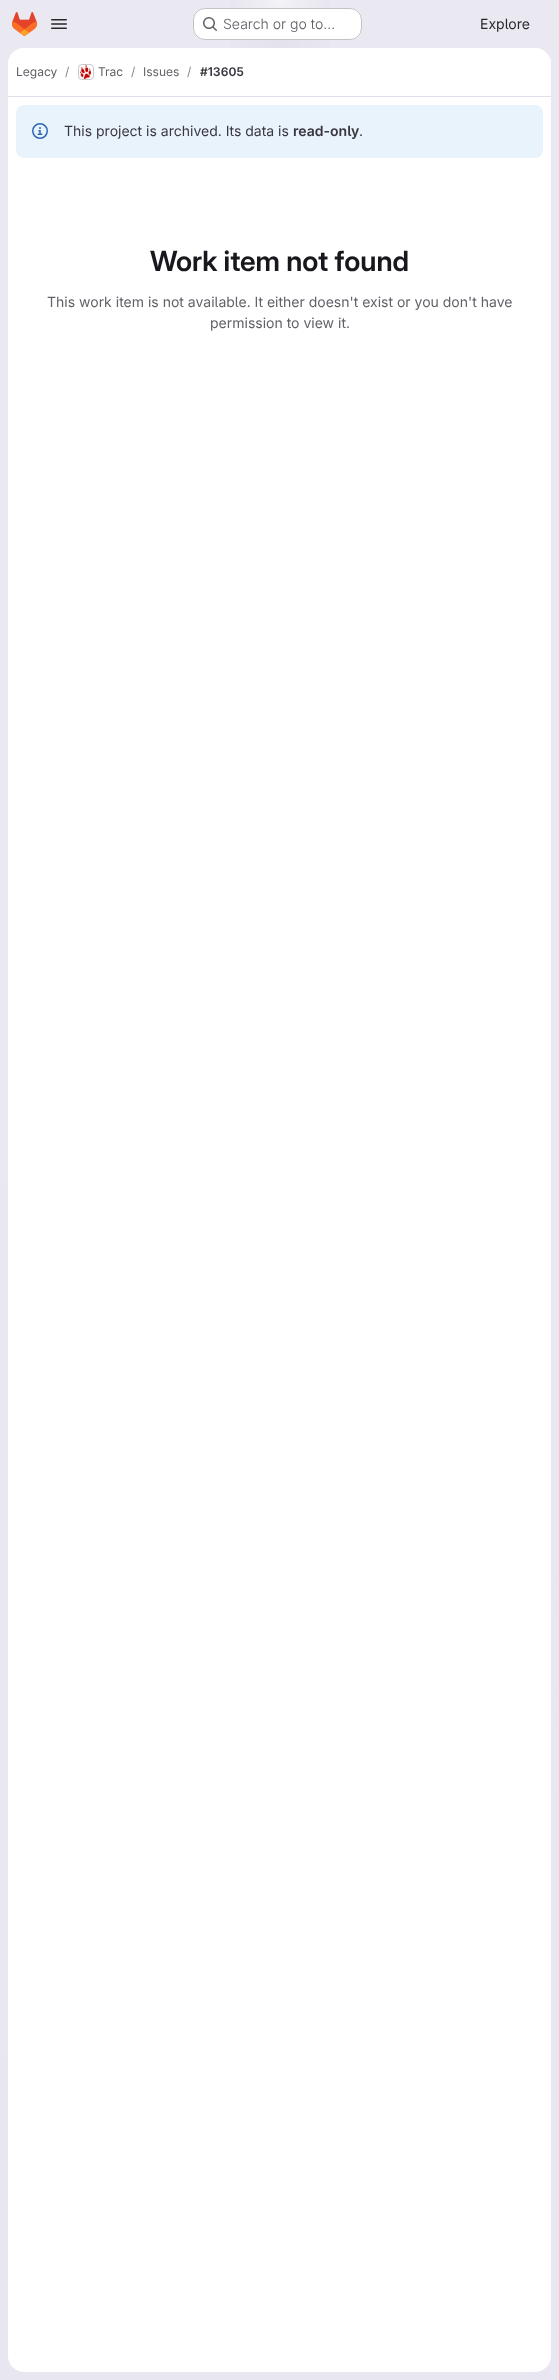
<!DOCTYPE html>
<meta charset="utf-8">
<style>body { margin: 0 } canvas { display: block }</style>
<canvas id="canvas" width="559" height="2380"></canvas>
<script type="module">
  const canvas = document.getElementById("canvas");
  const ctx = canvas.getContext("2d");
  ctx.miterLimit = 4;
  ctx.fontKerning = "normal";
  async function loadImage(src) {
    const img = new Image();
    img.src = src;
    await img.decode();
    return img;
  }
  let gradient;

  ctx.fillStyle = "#ffffff";
  ctx.fillRect(0, 0, 559, 2380);
  gradient = ctx.createLinearGradient(491, 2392, 68, -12);
  gradient.addColorStop(0, "#e8e6f0");
  gradient.addColorStop(0.7, "#eae9f2");
  ctx.fillStyle = gradient;
  ctx.fillRect(0, 0, 559, 2380);
  gradient = ctx.createRadialGradient(280, 0, 0, 280, 0, 280);
  gradient.addColorStop(0, "#e4e2ed");
  gradient.addColorStop(0.25, "rgba(228, 226, 237, 0)");
  ctx.fillStyle = gradient;
  ctx.beginPath();
  ctx.rect(230, 0, 100, 48);
  ctx.save();
  ctx.clip();
  ctx.scale(1, 2380 / 280);
  ctx.fillRect(0, 0, 559, 280);
  ctx.restore();
  gradient = ctx.createRadialGradient(280, 0, 0, 280, 0, 280);
  gradient.addColorStop(0, "#e4e2ec");
  gradient.addColorStop(0.18, "rgba(228, 226, 236, 0)");
  ctx.fillStyle = gradient;
  ctx.beginPath();
  ctx.rect(259, 0, 42, 43);
  ctx.save();
  ctx.clip();
  ctx.scale(1, 2380 / 280);
  ctx.fillRect(0, 0, 559, 280);
  ctx.restore();
  gradient = ctx.createRadialGradient(280, 0, 0, 280, 0, 2396);
  gradient.addColorStop(0, "rgba(255, 255, 255, 0.6)");
  gradient.addColorStop(0.02, "rgba(255, 255, 255, 0)");
  ctx.fillStyle = gradient;
  ctx.fillRect(236, 0, 88, 8);
  ctx.drawImage(await loadImage("img1.png"), 12, 12, 25, 24);
  ctx.drawImage(await loadImage("img2.png"), 51, 19, 16, 10);
  ctx.fillStyle = "#ffffff";
  ctx.beginPath();
  ctx.roundRect(193, 8, 169, 32, 12);
  ctx.fill();
  ctx.beginPath();
  ctx.roundRect(193.5, 8.5, 168, 31, 11.5);
  ctx.strokeStyle = "rgba(5, 5, 6, 0.24)";
  ctx.stroke();
  ctx.drawImage(await loadImage("img3.png"), 203, 17, 14, 14);
  ctx.font = "300 14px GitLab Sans";
  ctx.fillStyle = "#626168";
  ctx.fillText("Search or go to…", 223, 29);
  ctx.font = "14px GitLab Sans";
  ctx.fillStyle = "#28272d";
  ctx.fillText("Explore", 480, 29);
  ctx.fillStyle = "#ffffff";
  ctx.beginPath();
  ctx.roundRect(8, 48, 543, 2324, 16);
  ctx.fill();
  ctx.beginPath();
  ctx.roundRect(8, 48, 543, 49, [16, 16, 0, 0]);
  ctx.fill();
  ctx.fillStyle = "#e1dfec";
  ctx.fillRect(8, 96, 543, 1);
  ctx.font = "12px GitLab Sans";
  ctx.fillStyle = "#626168";
  ctx.fillText("Legacy", 16, 76);
  ctx.fillStyle = "#89888d";
  ctx.fillText("/", 65, 76);
  ctx.beginPath();
  ctx.roundRect(78.5, 64.5, 15, 15, 3.5);
  ctx.strokeStyle = "#dcdcde";
  ctx.stroke();
  ctx.drawImage(await loadImage("img4.png"), 80, 65, 11, 14);
  ctx.beginPath();
  ctx.roundRect(78.5, 64.5, 15, 15, 3.5);
  ctx.strokeStyle = "rgba(5, 5, 6, 0.08)";
  ctx.stroke();
  ctx.fillStyle = "#626168";
  ctx.fillText("Trac", 98, 76);
  ctx.fillStyle = "#89888d";
  ctx.fillText("/", 131, 76);
  ctx.fillStyle = "#626168";
  ctx.fillText("Issues", 143, 76);
  ctx.fillStyle = "#89888d";
  ctx.fillText("/", 187, 76);
  ctx.font = "600 12px 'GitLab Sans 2'";
  ctx.fillStyle = "#3a383f";
  ctx.fillText("#13605", 200, 76);
  ctx.fillStyle = "#e9f3fc";
  ctx.beginPath();
  ctx.roundRect(16, 105, 527, 53, 8);
  ctx.fill();
  ctx.drawImage(await loadImage("img5.png"), 32, 123, 16, 16);
  ctx.font = "14px GitLab Sans";
  ctx.fillStyle = "#3a383f";
  ctx.fillText("This project is archived. Its data is", 64, 136);
  ctx.font = "600 14px 'GitLab Sans 2'";
  ctx.fillText("read-only", 293, 136);
  ctx.font = "14px GitLab Sans";
  ctx.fillText(".", 359, 136);
  ctx.font = "600 28px GitLab Sans";
  ctx.fillStyle = "#18171d";
  ctx.fillText("Work item not found", 150, 271);
  ctx.font = "14px GitLab Sans";
  ctx.fillStyle = "#626168";
  ctx.fillText("This work item is not available. It either doesn't exist or you don't have", 47, 307);
  ctx.fillText("permission to view it.", 210, 328);
</script>
